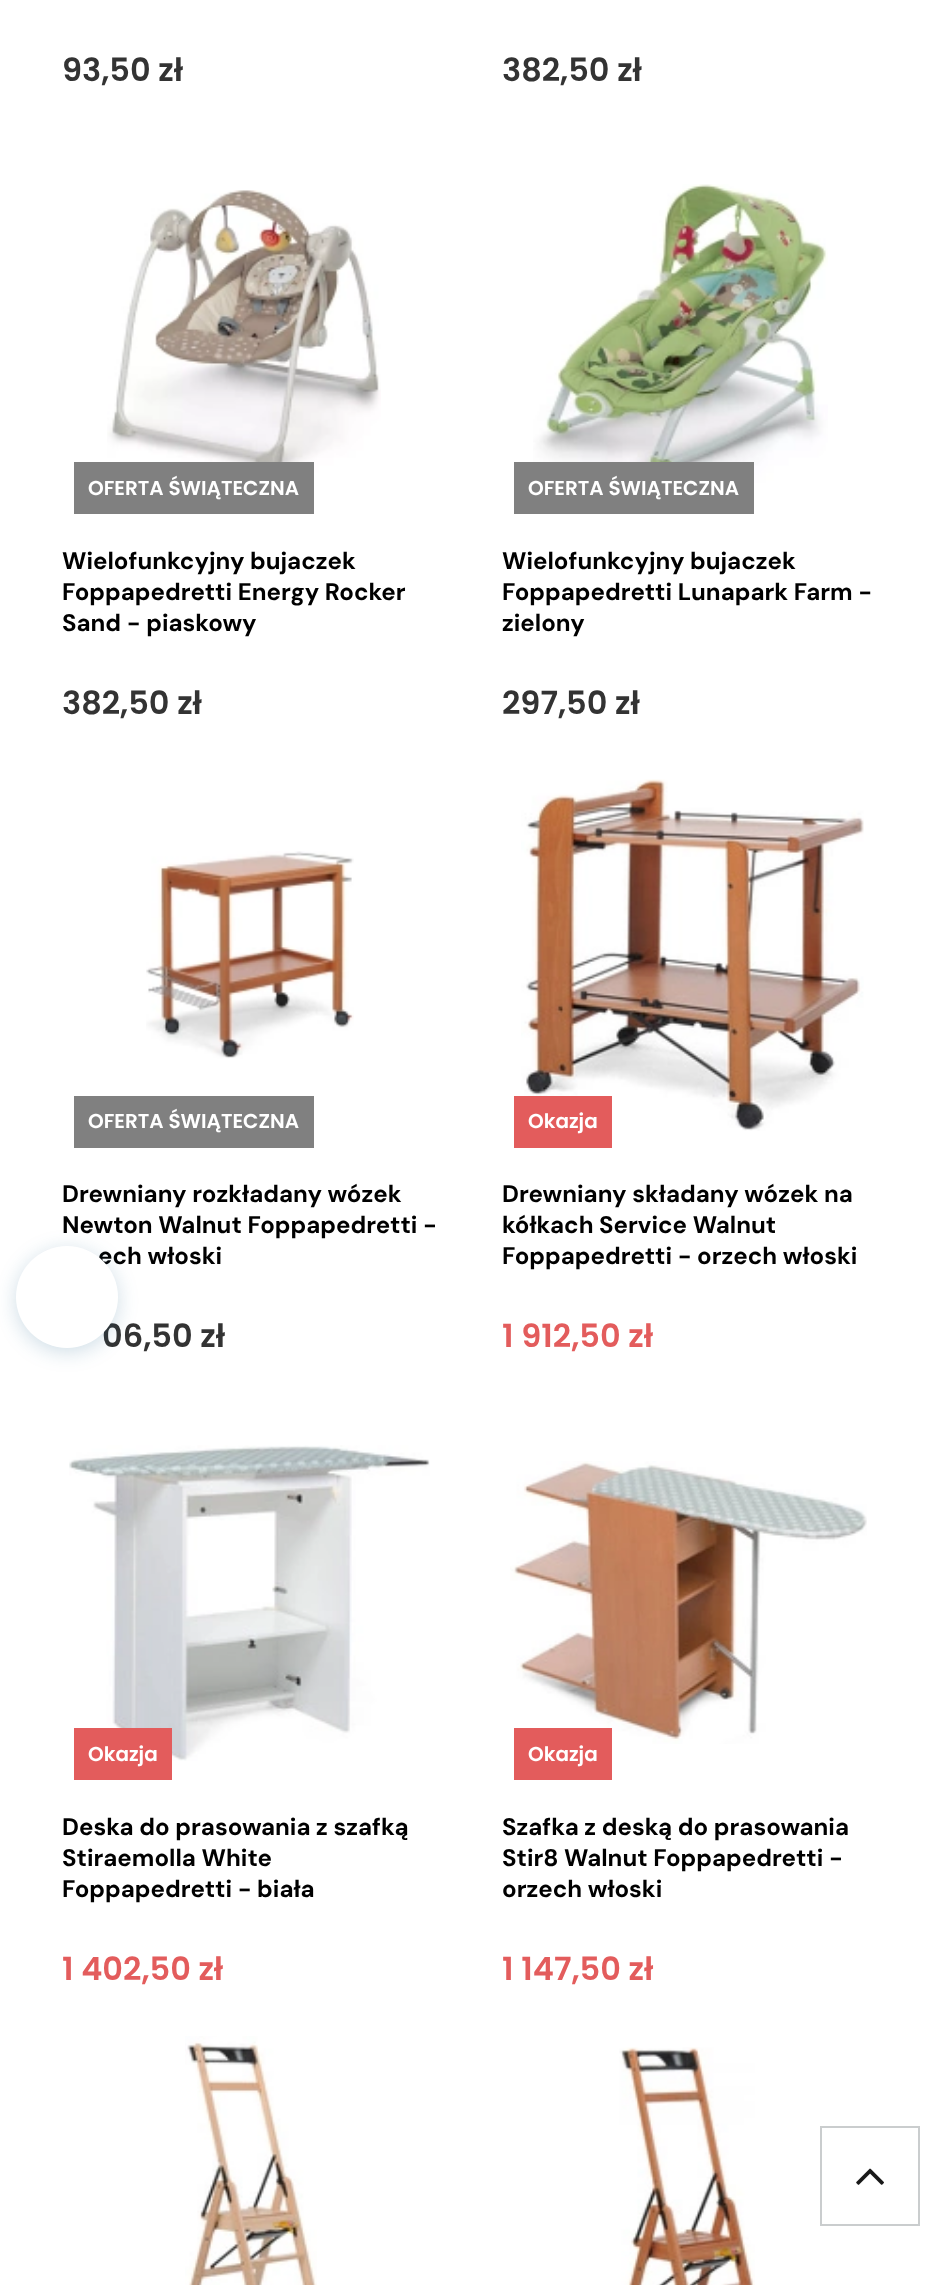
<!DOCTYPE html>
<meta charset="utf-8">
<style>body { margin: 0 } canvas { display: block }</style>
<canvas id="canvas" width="939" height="2285"></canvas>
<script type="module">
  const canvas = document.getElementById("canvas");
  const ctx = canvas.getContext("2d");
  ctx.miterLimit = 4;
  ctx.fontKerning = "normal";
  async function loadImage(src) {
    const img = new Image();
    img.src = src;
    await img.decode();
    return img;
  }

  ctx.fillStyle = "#ffffff";
  ctx.fillRect(0, 0, 939, 2285);
  ctx.font = "600 32px Poppins";
  ctx.fillStyle = "#333333";
  ctx.fillText("93,50 zł", 62, 81);
  ctx.fillText("382,50 zł", 502, 81);
  ctx.drawImage(await loadImage("img1.png"), 107, 190, 274, 289);
  ctx.fillStyle = "#808080";
  ctx.fillRect(74, 462, 240, 52);
  ctx.font = "600 20px Poppins";
  ctx.fillStyle = "#ffffff";
  ctx.fillText("OFERTA ŚWIĄTECZNA", 88, 495);
  ctx.font = "bold 24px DM Sans";
  ctx.fillStyle = "#000000";
  ctx.fillText("Wielofunkcyjny bujaczek", 62, 569);
  ctx.fillText("Foppapedretti Energy Rocker", 62, 600);
  ctx.fillText("Sand - piaskowy", 62, 631);
  ctx.font = "600 32px Poppins";
  ctx.fillStyle = "#333333";
  ctx.fillText("382,50 zł", 62, 714);
  ctx.drawImage(await loadImage("img2.png"), 533, 184, 295, 299);
  ctx.fillStyle = "#808080";
  ctx.fillRect(514, 462, 240, 52);
  ctx.font = "600 20px Poppins";
  ctx.fillStyle = "#ffffff";
  ctx.fillText("OFERTA ŚWIĄTECZNA", 528, 495);
  ctx.font = "bold 24px DM Sans";
  ctx.fillStyle = "#000000";
  ctx.fillText("Wielofunkcyjny bujaczek", 502, 569);
  ctx.fillText("Foppapedretti Lunapark Farm -", 502, 600);
  ctx.fillText("zielony", 502, 631);
  ctx.font = "600 32px Poppins";
  ctx.fillStyle = "#333333";
  ctx.fillText("297,50 zł", 502, 714);
  ctx.drawImage(await loadImage("img3.png"), 146, 851, 208, 208);
  ctx.fillStyle = "#808080";
  ctx.fillRect(74, 1096, 240, 52);
  ctx.font = "600 20px Poppins";
  ctx.fillStyle = "#ffffff";
  ctx.fillText("OFERTA ŚWIĄTECZNA", 88, 1128);
  ctx.font = "bold 24px DM Sans";
  ctx.fillStyle = "#000000";
  ctx.fillText("Drewniany rozkładany wózek", 62, 1202);
  ctx.fillText("Newton Walnut Foppapedretti -", 62, 1233);
  ctx.fillText("ech włoski", 98, 1264);
  ctx.font = "600 32px Poppins";
  ctx.fillStyle = "#333333";
  ctx.fillText("06,50 zł", 102, 1347);
  ctx.drawImage(await loadImage("img4.png"), 521, 779, 343, 352);
  ctx.fillStyle = "#e35c5c";
  ctx.fillRect(514, 1096, 98, 52);
  ctx.font = "600 20px Poppins";
  ctx.fillStyle = "#ffffff";
  ctx.fillText("Okazja", 528, 1128);
  ctx.font = "bold 24px DM Sans";
  ctx.fillStyle = "#000000";
  ctx.fillText("Drewniany składany wózek na", 502, 1202);
  ctx.fillText("kółkach Service Walnut", 502, 1233);
  ctx.fillText("Foppapedretti - orzech włoski", 502, 1264);
  ctx.font = "600 32px Poppins";
  ctx.fillStyle = "#e35c5c";
  ctx.fillText("1 912,50 zł", 502, 1347);
  ctx.drawImage(await loadImage("img5.png"), 69, 1445, 361, 316);
  ctx.fillRect(74, 1728, 98, 52);
  ctx.font = "600 20px Poppins";
  ctx.fillStyle = "#ffffff";
  ctx.fillText("Okazja", 88, 1761);
  ctx.font = "bold 24px DM Sans";
  ctx.fillStyle = "#000000";
  ctx.fillText("Deska do prasowania z szafką", 62, 1835);
  ctx.fillText("Stiraemolla White", 62, 1866);
  ctx.fillText("Foppapedretti - biała", 62, 1897);
  ctx.font = "600 32px Poppins";
  ctx.fillStyle = "#e35c5c";
  ctx.fillText("1 402,50 zł", 62, 1980);
  ctx.drawImage(await loadImage("img6.png"), 510, 1461, 357, 283);
  ctx.fillRect(514, 1728, 98, 52);
  ctx.font = "600 20px Poppins";
  ctx.fillStyle = "#ffffff";
  ctx.fillText("Okazja", 528, 1761);
  ctx.font = "bold 24px DM Sans";
  ctx.fillStyle = "#000000";
  ctx.fillText("Szafka z deską do prasowania", 502, 1835);
  ctx.fillText("Stir8 Walnut Foppapedretti -", 502, 1866);
  ctx.fillText("orzech włoski", 502, 1897);
  ctx.font = "600 32px Poppins";
  ctx.fillStyle = "#e35c5c";
  ctx.fillText("1 147,50 zł", 502, 1980);
  ctx.drawImage(await loadImage("img7.png"), 185, 2036, 132, 249);
  ctx.drawImage(await loadImage("img8.png"), 619, 2047, 136, 238);
  ctx.fillStyle = "rgba(11, 86, 128, 0.2)";
  ctx.filter = "blur(10px)";
  ctx.beginPath();
  ctx.roundRect(16, 1250, 102, 102, 51);
  ctx.fill();
  ctx.filter = "none";
  ctx.fillStyle = "#ffffff";
  ctx.beginPath();
  ctx.arc(67, 1297, 51, 0, Math.PI * 2);
  ctx.fill();
  ctx.strokeStyle = "#cacdce";
  ctx.lineWidth = 2;
  ctx.strokeRect(821, 2127, 98, 98);
  ctx.drawImage(await loadImage("img9.png"), 856, 2168, 28, 17);
</script>
